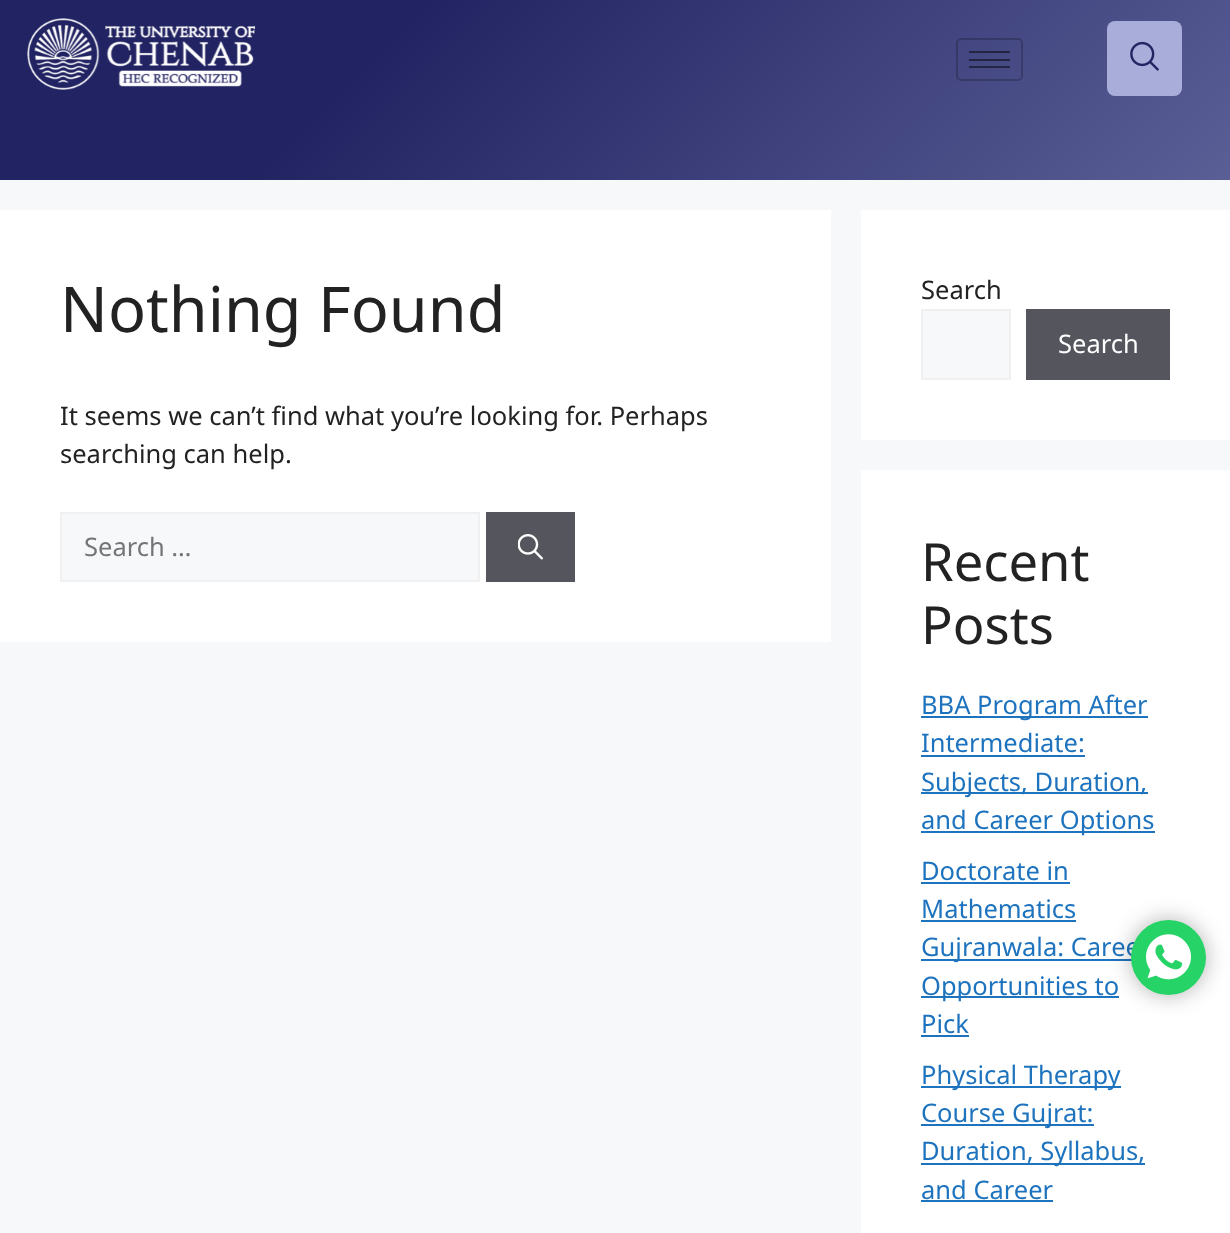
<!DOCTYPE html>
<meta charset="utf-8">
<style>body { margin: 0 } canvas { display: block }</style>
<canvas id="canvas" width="1230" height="1233"></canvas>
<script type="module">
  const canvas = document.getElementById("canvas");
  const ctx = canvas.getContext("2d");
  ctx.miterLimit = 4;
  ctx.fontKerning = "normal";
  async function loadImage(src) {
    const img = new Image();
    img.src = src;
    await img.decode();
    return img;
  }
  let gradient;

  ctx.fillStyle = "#f7f8f9";
  ctx.fillRect(0, 0, 1230, 1233);
  gradient = ctx.createLinearGradient(968, 443, 263, -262);
  gradient.addColorStop(0, "#5a5f96");
  gradient.addColorStop(0.7, "#222362");
  ctx.fillStyle = gradient;
  ctx.fillRect(0, 0, 1230, 180);
  gradient = ctx.createLinearGradient(968, 443, 263, -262);
  gradient.addColorStop(0, "#2d304b");
  gradient.addColorStop(0.7, "#111231");
  ctx.fillStyle = gradient;
  ctx.fillRect(969, 66, 41, 2);
  ctx.fillRect(969, 59, 41, 2);
  ctx.fillRect(969, 51, 41, 2);
  ctx.drawImage(await loadImage("img1.png"), 27, 18, 229, 72);
  ctx.beginPath();
  ctx.roundRect(957, 39, 65, 41, 4);
  ctx.strokeStyle = "rgba(0, 0, 0, 0.2)";
  ctx.lineWidth = 2;
  ctx.stroke();
  ctx.fillStyle = "#a9adda";
  ctx.beginPath();
  ctx.roundRect(1107, 21, 75, 75, 8);
  ctx.fill();
  ctx.drawImage(await loadImage("img2.png"), 1130, 41, 29, 30);
  ctx.fillStyle = "#ffffff";
  ctx.fillRect(0, 210, 831, 432);
  ctx.font = "63px Noto Sans";
  ctx.fillStyle = "#222222";
  ctx.fillText("Nothing Found", 60, 332);
  ctx.font = "25.5px Noto Sans";
  ctx.fillText("It seems we can’t find what you’re looking for. Perhaps", 60, 425);
  ctx.fillText("searching can help.", 60, 463);
  ctx.fillStyle = "#f7f8f9";
  ctx.beginPath();
  ctx.rect(61, 513, 418, 68);
  ctx.fill();
  ctx.strokeStyle = "#f0f0f0";
  ctx.stroke();
  ctx.fillStyle = "#757575";
  ctx.fillText("Search …", 84, 556);
  ctx.fillStyle = "#55555e";
  ctx.fillRect(486, 512, 89, 70);
  ctx.drawImage(await loadImage("img3.png"), 518, 534, 25, 26);
  ctx.fillStyle = "#ffffff";
  ctx.fillRect(861, 210, 369, 230);
  ctx.fillStyle = "#222222";
  ctx.fillText("Search", 921, 299);
  ctx.fillStyle = "#f7f8f9";
  ctx.beginPath();
  ctx.rect(922, 310, 88, 69);
  ctx.fill();
  ctx.stroke();
  ctx.fillStyle = "#55555e";
  ctx.fillRect(1026, 309, 144, 71);
  ctx.fillStyle = "#ffffff";
  ctx.fillText("Search", 1058, 353);
  ctx.fillRect(861, 470, 369, 763);
  ctx.font = "52.5px Noto Sans";
  ctx.fillStyle = "#222222";
  ctx.fillText("Recent", 921, 581);
  ctx.fillText("Posts", 921, 644);
  ctx.fillStyle = "#1e73be";
  ctx.fillRect(921, 716, 227, 2);
  ctx.font = "25.5px Noto Sans";
  ctx.fillText("BBA Program After", 921, 714);
  ctx.fillText("Intermediate:", 921, 752);
  ctx.fillRect(921, 755, 164, 2);
  ctx.fillRect(921, 792, 227, 2);
  ctx.fillText("Subjects, Duration,", 921, 791);
  ctx.fillRect(921, 831, 234, 2);
  ctx.fillText("and Career Options", 921, 829);
  ctx.fillText("Doctorate in", 921, 880);
  ctx.fillRect(921, 882, 149, 2);
  ctx.fillText("Mathematics", 921, 918);
  ctx.fillRect(921, 920, 155, 2);
  ctx.fillRect(921, 959, 211, 2);
  ctx.fillText("Gujranwala: Caree", 921, 956);
  ctx.fillRect(921, 996, 198, 2);
  ctx.fillText("Opportunities to", 921, 995);
  ctx.fillText("Pick", 921, 1033);
  ctx.fillRect(921, 1035, 48, 2);
  ctx.fillRect(921, 1086, 200, 2);
  ctx.fillText("Physical Therapy", 921, 1084);
  ctx.fillRect(921, 1124, 173, 2);
  ctx.fillText("Course Gujrat:", 921, 1122);
  ctx.fillRect(921, 1163, 224, 2);
  ctx.fillText("Duration, Syllabus,", 921, 1160);
  ctx.fillText("and Career", 921, 1199);
  ctx.fillRect(921, 1200, 132, 2);
  ctx.fillStyle = "rgba(0, 0, 0, 0.3)";
  ctx.filter = "blur(11px)";
  ctx.beginPath();
  ctx.roundRect(1131, 920, 75, 75, 37.5);
  ctx.fill();
  ctx.filter = "none";
  ctx.fillStyle = "#25d366";
  ctx.beginPath();
  ctx.arc(1168.5, 957.5, 37.5, 0, Math.PI * 2);
  ctx.fill();
  ctx.drawImage(await loadImage("img4.png"), 1146, 934, 45, 46);
</script>
